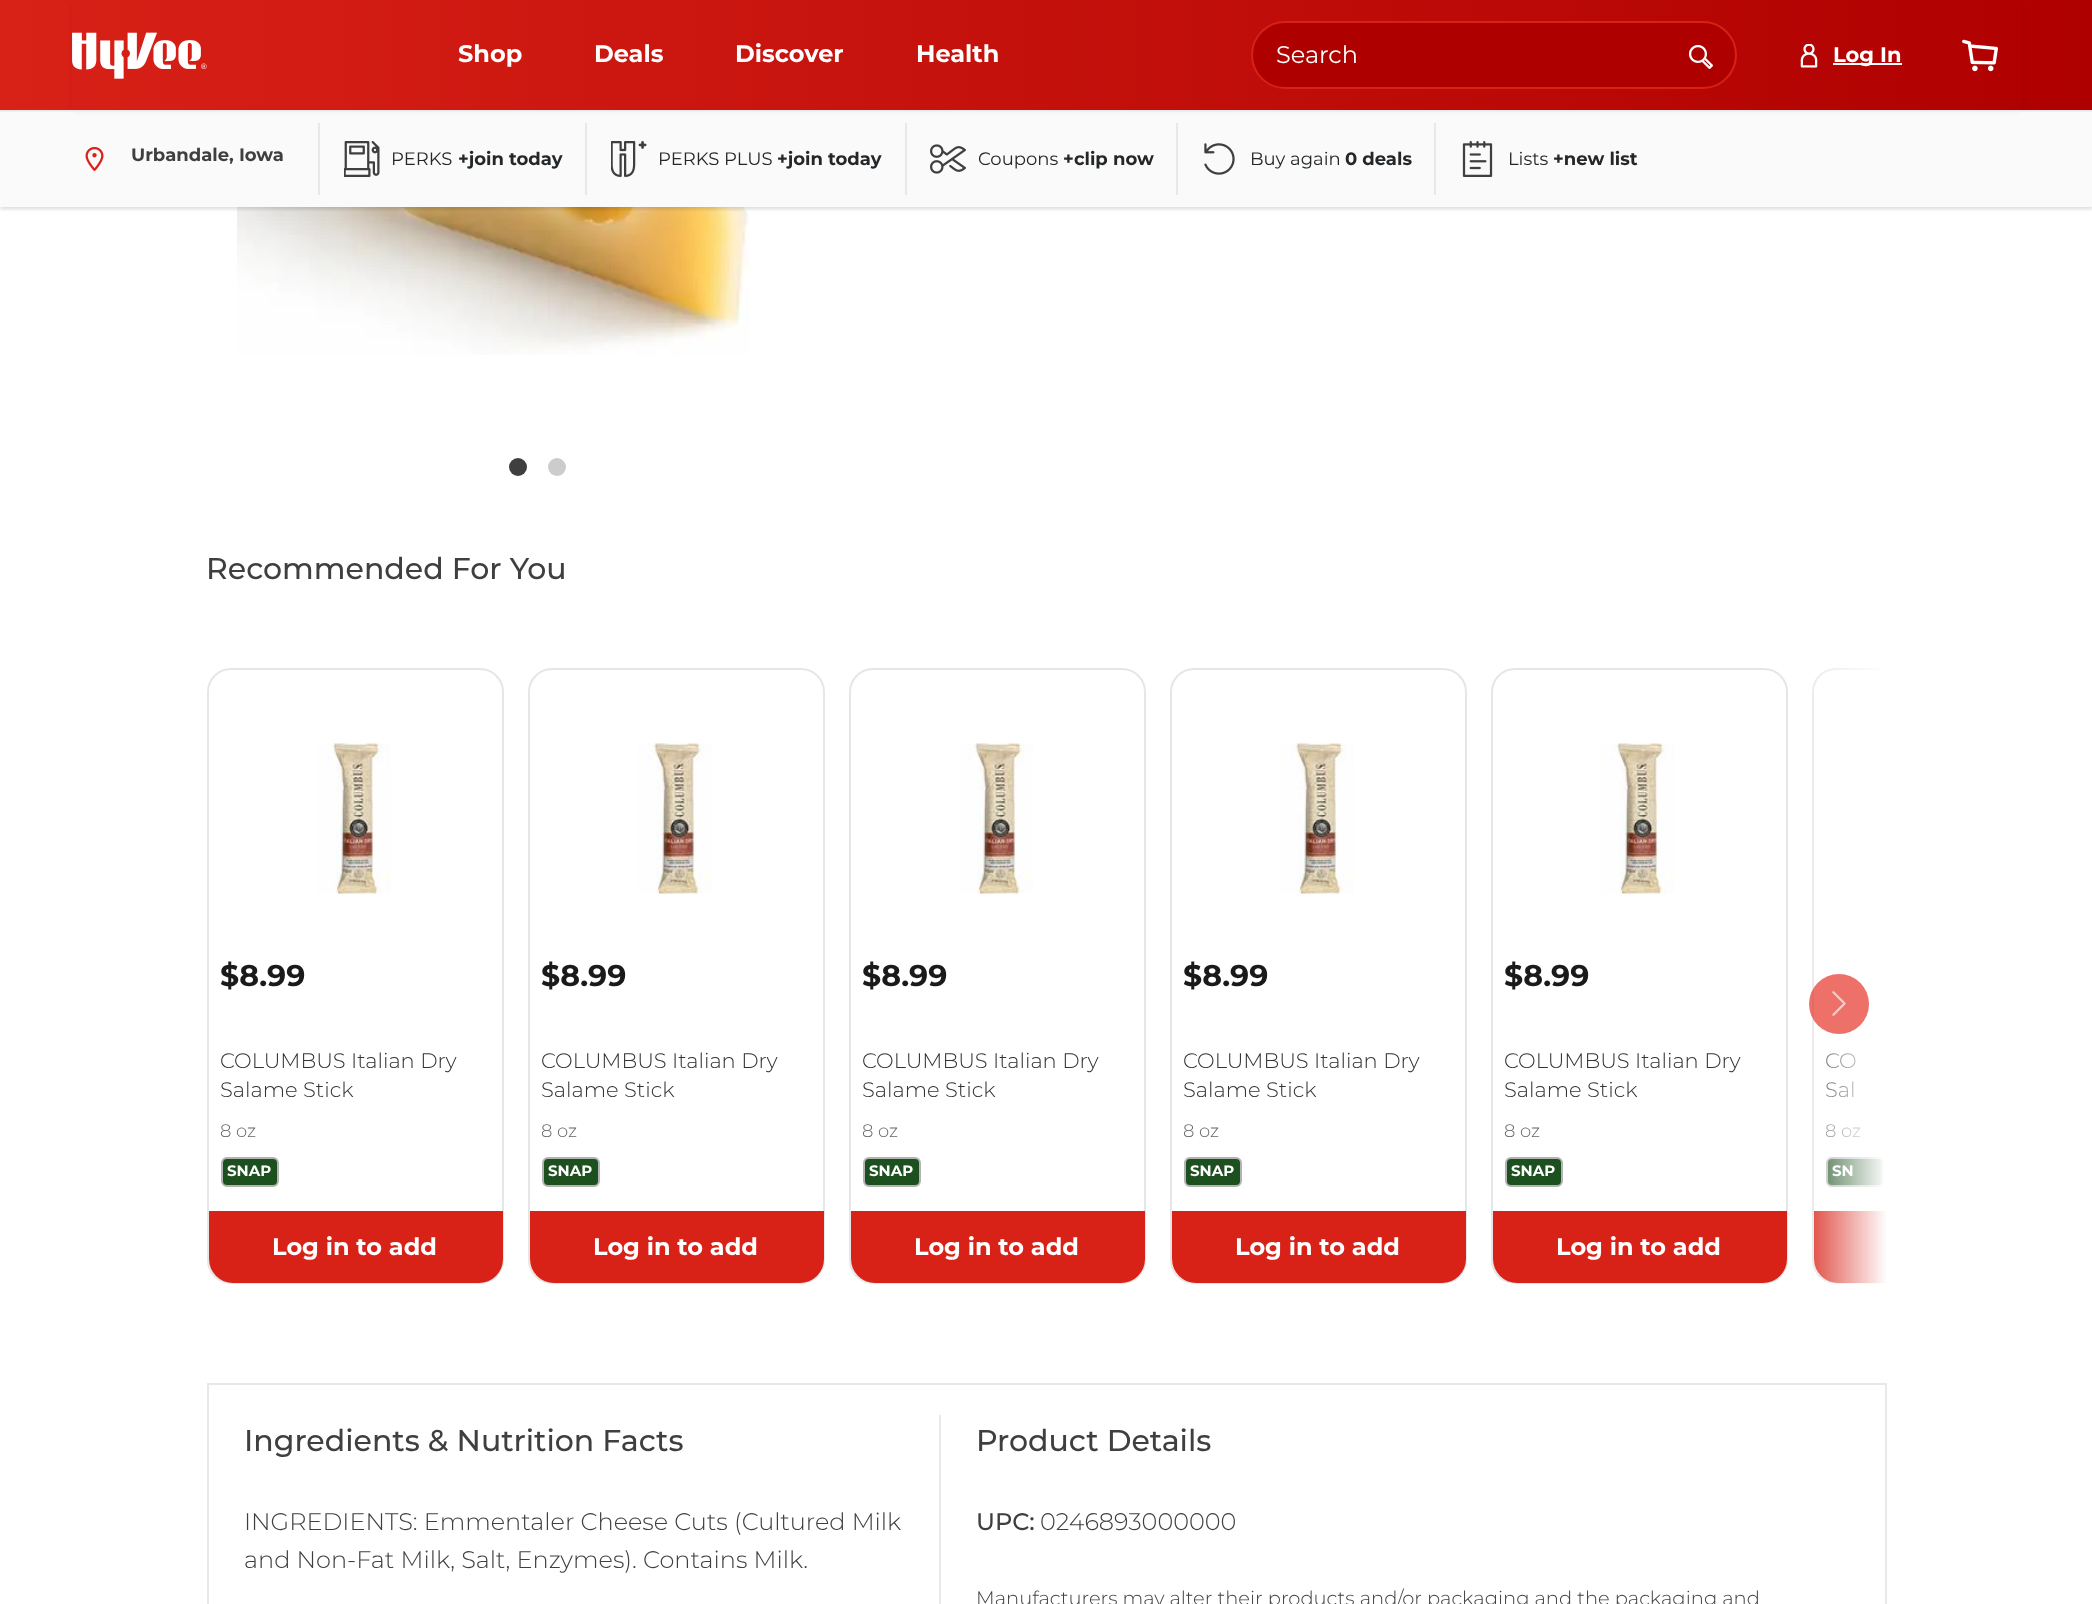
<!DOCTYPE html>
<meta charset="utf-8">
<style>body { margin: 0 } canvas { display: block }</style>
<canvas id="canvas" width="2092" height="1604"></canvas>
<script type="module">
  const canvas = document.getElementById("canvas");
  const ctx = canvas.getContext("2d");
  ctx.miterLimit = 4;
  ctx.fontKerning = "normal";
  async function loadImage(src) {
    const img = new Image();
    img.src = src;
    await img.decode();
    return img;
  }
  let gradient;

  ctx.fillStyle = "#ffffff";
  ctx.fillRect(0, 0, 2092, 1604);
  gradient = ctx.createLinearGradient(0, 55, 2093, 55);
  gradient.addColorStop(0, "#d82117");
  gradient.addColorStop(1, "#af0000");
  ctx.fillStyle = gradient;
  ctx.fillRect(0, 0, 2092, 110);
  ctx.save();
  ctx.beginPath();
  ctx.moveTo(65, 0);
  ctx.lineTo(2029, 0);
  ctx.lineTo(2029, 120);
  ctx.lineTo(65, 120);
  ctx.closePath();
  ctx.moveTo(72, 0);
  ctx.lineTo(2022, 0);
  ctx.lineTo(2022, 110);
  ctx.lineTo(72, 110);
  ctx.closePath();
  ctx.clip("evenodd");
  ctx.fillStyle = "rgba(0, 0, 0, 0.2)";
  ctx.filter = "blur(3px)";
  ctx.beginPath();
  ctx.rect(75, 6, 1944, 104);
  ctx.fill();
  ctx.filter = "none";
  ctx.restore();
  ctx.drawImage(await loadImage("img1.png"), 72, 32, 135, 47);
  ctx.font = "bold 24px Montserrat";
  ctx.fillStyle = "#ffffff";
  ctx.fillText("Shop", 458, 62);
  ctx.fillText("Deals", 594, 62);
  ctx.fillText("Discover", 735, 62);
  ctx.fillText("Health", 916, 62);
  ctx.fillStyle = "#af0000";
  ctx.beginPath();
  ctx.roundRect(1252, 22, 484, 66, 33);
  ctx.fill();
  ctx.strokeStyle = "#d82117";
  ctx.lineWidth = 2;
  ctx.stroke();
  ctx.font = "24px Montserrat";
  ctx.fillStyle = "#ffffff";
  ctx.fillText("Search", 1276, 63);
  ctx.drawImage(await loadImage("img2.png"), 1689, 45, 24, 24);
  ctx.drawImage(await loadImage("img3.png"), 1800, 44, 18, 24);
  ctx.fillRect(1833, 63, 69, 2);
  ctx.font = "bold 21px Montserrat";
  ctx.fillText("Log In", 1833, 62);
  ctx.drawImage(await loadImage("img4.png"), 1962, 39, 36, 33);
  ctx.fillStyle = "#e8e8e8";
  ctx.fillRect(0, 110, 2092, 2);
  ctx.drawImage(await loadImage("img11.png"), 237, 207, 512, 148);
  ctx.save();
  ctx.beginPath();
  ctx.rect(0, 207, 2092, 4);
  ctx.clip();
  ctx.fillStyle = "rgba(0, 0, 0, 0.15)";
  ctx.filter = "blur(2px)";
  ctx.beginPath();
  ctx.rect(0, 113, 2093, 96);
  ctx.fill();
  ctx.filter = "none";
  ctx.restore();
  ctx.fillStyle = "rgba(245, 245, 245, 0.5)";
  ctx.fillRect(0, 111, 2092, 96);
  ctx.drawImage(await loadImage("img5.png"), 85, 147, 19, 24);
  ctx.font = "bold 18px Montserrat";
  ctx.fillStyle = "#3f3f3f";
  ctx.fillText("Urbandale, Iowa", 131, 161);
  ctx.fillStyle = "#e8e8e8";
  ctx.fillRect(318, 123, 2, 72);
  ctx.drawImage(await loadImage("img6.png"), 344, 141, 36, 36);
  ctx.font = "18px Montserrat";
  ctx.fillStyle = "#242729";
  ctx.fillText("PERKS", 391, 165);
  ctx.font = "bold 18px Montserrat";
  ctx.fillText("+join today", 458, 165);
  ctx.fillStyle = "#e8e8e8";
  ctx.fillRect(585, 123, 2, 72);
  ctx.drawImage(await loadImage("img7.png"), 611, 141, 36, 36);
  ctx.font = "18px Montserrat";
  ctx.fillStyle = "#242729";
  ctx.fillText("PERKS PLUS", 658, 165);
  ctx.font = "bold 18px Montserrat";
  ctx.fillText("+join today", 777, 165);
  ctx.fillStyle = "#e8e8e8";
  ctx.fillRect(905, 123, 2, 72);
  ctx.drawImage(await loadImage("img8.png"), 930, 144, 36, 30);
  ctx.font = "18px Montserrat";
  ctx.fillStyle = "#242729";
  ctx.fillText("Coupons", 978, 165);
  ctx.font = "bold 18px Montserrat";
  ctx.fillText("+clip now", 1063, 165);
  ctx.fillStyle = "#e8e8e8";
  ctx.fillRect(1176, 123, 2, 72);
  ctx.drawImage(await loadImage("img9.png"), 1204, 143, 31, 32);
  ctx.font = "18px Montserrat";
  ctx.fillStyle = "#242729";
  ctx.fillText("Buy again", 1250, 165);
  ctx.font = "bold 18px Montserrat";
  ctx.fillText("0 deals", 1345, 165);
  ctx.fillStyle = "#e8e8e8";
  ctx.fillRect(1434, 123, 2, 72);
  ctx.drawImage(await loadImage("img10.png"), 1462, 141, 31, 36);
  ctx.font = "18px Montserrat";
  ctx.fillStyle = "#242729";
  ctx.fillText("Lists", 1508, 165);
  ctx.font = "bold 18px Montserrat";
  ctx.fillText("+new list", 1553, 165);
  ctx.fillStyle = "#3f3f3f";
  ctx.beginPath();
  ctx.arc(518, 467, 9, 0, Math.PI * 2);
  ctx.fill();
  ctx.fillStyle = "#cccccc";
  ctx.beginPath();
  ctx.arc(557, 467, 9, 0, Math.PI * 2);
  ctx.fill();
  ctx.font = "500 30px Montserrat";
  ctx.fillStyle = "#3f3f3f";
  ctx.fillText("Recommended For You", 206, 579);
  ctx.save();
  ctx.beginPath();
  ctx.rect(207, 668, 1680, 628);
  ctx.clip();
  ctx.beginPath();
  ctx.roundRect(1813, 669, 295, 614, 23);
  ctx.strokeStyle = "#e6e6e6";
  ctx.stroke();
  ctx.restore();
  ctx.font = "300 21px Montserrat";
  ctx.fillStyle = "#333333";
  ctx.fillText("CO", 1825, 1068);
  ctx.fillText("Sal", 1825, 1097);
  ctx.font = "300 18px Montserrat";
  ctx.fillStyle = "#666666";
  ctx.fillText("8 oz", 1825, 1137);
  ctx.fillStyle = "#1c501e";
  ctx.beginPath();
  ctx.roundRect(1827, 1158, 56, 28, 5);
  ctx.fill();
  ctx.strokeStyle = "#b3b3b3";
  ctx.stroke();
  ctx.font = "bold 15px Montserrat";
  ctx.fillStyle = "#ffffff";
  ctx.fillText("SN", 1832, 1176);
  ctx.fillStyle = "#d82117";
  ctx.beginPath();
  ctx.roundRect(1814, 1211, 73, 72, [0, 0, 0, 24]);
  ctx.fill();
  gradient = ctx.createLinearGradient(1791, 1004, 1887, 1004);
  gradient.addColorStop(0, "rgba(255, 255, 255, 0)");
  gradient.addColorStop(1, "#ffffff");
  ctx.fillStyle = gradient;
  ctx.fillRect(1812, 668, 75, 616);
  ctx.fillStyle = "rgba(226, 28, 17, 0.63)";
  ctx.beginPath();
  ctx.arc(1839, 1004, 30, 0, Math.PI * 2);
  ctx.fill();
  ctx.drawImage(await loadImage("img12.png"), 1832, 991, 14, 25);
  ctx.beginPath();
  ctx.roundRect(208, 669, 295, 614, 23);
  ctx.strokeStyle = "#e6e6e6";
  ctx.stroke();
  ctx.drawImage(await loadImage("img13.png"), 317, 743, 74, 151);
  ctx.font = "bold 30px Montserrat";
  ctx.fillStyle = "#1a1a1a";
  ctx.fillText("$8.99", 220, 986);
  ctx.font = "300 21px Montserrat";
  ctx.fillStyle = "#333333";
  ctx.fillText("COLUMBUS Italian Dry", 220, 1068);
  ctx.fillText("Salame Stick", 220, 1097);
  ctx.font = "300 18px Montserrat";
  ctx.fillStyle = "#666666";
  ctx.fillText("8 oz", 220, 1137);
  ctx.fillStyle = "#1c501e";
  ctx.beginPath();
  ctx.roundRect(222, 1158, 56, 28, 5);
  ctx.fill();
  ctx.strokeStyle = "#b3b3b3";
  ctx.stroke();
  ctx.font = "bold 15px Montserrat";
  ctx.fillStyle = "#ffffff";
  ctx.fillText("SNAP", 227, 1176);
  ctx.fillStyle = "#d82117";
  ctx.beginPath();
  ctx.roundRect(209, 1211, 294, 72, [0, 0, 24, 24]);
  ctx.fill();
  ctx.font = "bold 24px Montserrat";
  ctx.fillStyle = "#ffffff";
  ctx.fillText("Log in to add", 272, 1255);
  ctx.beginPath();
  ctx.roundRect(529, 669, 295, 614, 23);
  ctx.strokeStyle = "#e6e6e6";
  ctx.stroke();
  ctx.drawImage(await loadImage("img13.png"), 638, 743, 74, 151);
  ctx.font = "bold 30px Montserrat";
  ctx.fillStyle = "#1a1a1a";
  ctx.fillText("$8.99", 541, 986);
  ctx.font = "300 21px Montserrat";
  ctx.fillStyle = "#333333";
  ctx.fillText("COLUMBUS Italian Dry", 541, 1068);
  ctx.fillText("Salame Stick", 541, 1097);
  ctx.font = "300 18px Montserrat";
  ctx.fillStyle = "#666666";
  ctx.fillText("8 oz", 541, 1137);
  ctx.fillStyle = "#1c501e";
  ctx.beginPath();
  ctx.roundRect(543, 1158, 56, 28, 5);
  ctx.fill();
  ctx.strokeStyle = "#b3b3b3";
  ctx.stroke();
  ctx.font = "bold 15px Montserrat";
  ctx.fillStyle = "#ffffff";
  ctx.fillText("SNAP", 548, 1176);
  ctx.fillStyle = "#d82117";
  ctx.beginPath();
  ctx.roundRect(530, 1211, 294, 72, [0, 0, 24, 24]);
  ctx.fill();
  ctx.font = "bold 24px Montserrat";
  ctx.fillStyle = "#ffffff";
  ctx.fillText("Log in to add", 593, 1255);
  ctx.beginPath();
  ctx.roundRect(850, 669, 295, 614, 23);
  ctx.strokeStyle = "#e6e6e6";
  ctx.stroke();
  ctx.drawImage(await loadImage("img13.png"), 959, 743, 74, 151);
  ctx.font = "bold 30px Montserrat";
  ctx.fillStyle = "#1a1a1a";
  ctx.fillText("$8.99", 862, 986);
  ctx.font = "300 21px Montserrat";
  ctx.fillStyle = "#333333";
  ctx.fillText("COLUMBUS Italian Dry", 862, 1068);
  ctx.fillText("Salame Stick", 862, 1097);
  ctx.font = "300 18px Montserrat";
  ctx.fillStyle = "#666666";
  ctx.fillText("8 oz", 862, 1137);
  ctx.fillStyle = "#1c501e";
  ctx.beginPath();
  ctx.roundRect(864, 1158, 56, 28, 5);
  ctx.fill();
  ctx.strokeStyle = "#b3b3b3";
  ctx.stroke();
  ctx.font = "bold 15px Montserrat";
  ctx.fillStyle = "#ffffff";
  ctx.fillText("SNAP", 869, 1176);
  ctx.fillStyle = "#d82117";
  ctx.beginPath();
  ctx.roundRect(851, 1211, 294, 72, [0, 0, 24, 24]);
  ctx.fill();
  ctx.font = "bold 24px Montserrat";
  ctx.fillStyle = "#ffffff";
  ctx.fillText("Log in to add", 914, 1255);
  ctx.beginPath();
  ctx.roundRect(1171, 669, 295, 614, 23);
  ctx.strokeStyle = "#e6e6e6";
  ctx.stroke();
  ctx.drawImage(await loadImage("img14.png"), 1280, 743, 74, 151);
  ctx.font = "bold 30px Montserrat";
  ctx.fillStyle = "#1a1a1a";
  ctx.fillText("$8.99", 1183, 986);
  ctx.font = "300 21px Montserrat";
  ctx.fillStyle = "#333333";
  ctx.fillText("COLUMBUS Italian Dry", 1183, 1068);
  ctx.fillText("Salame Stick", 1183, 1097);
  ctx.font = "300 18px Montserrat";
  ctx.fillStyle = "#666666";
  ctx.fillText("8 oz", 1183, 1137);
  ctx.fillStyle = "#1c501e";
  ctx.beginPath();
  ctx.roundRect(1185, 1158, 56, 28, 5);
  ctx.fill();
  ctx.strokeStyle = "#b3b3b3";
  ctx.stroke();
  ctx.font = "bold 15px Montserrat";
  ctx.fillStyle = "#ffffff";
  ctx.fillText("SNAP", 1190, 1176);
  ctx.fillStyle = "#d82117";
  ctx.beginPath();
  ctx.roundRect(1172, 1211, 294, 72, [0, 0, 24, 24]);
  ctx.fill();
  ctx.font = "bold 24px Montserrat";
  ctx.fillStyle = "#ffffff";
  ctx.fillText("Log in to add", 1235, 1255);
  ctx.beginPath();
  ctx.roundRect(1492, 669, 295, 614, 23);
  ctx.strokeStyle = "#e6e6e6";
  ctx.stroke();
  ctx.drawImage(await loadImage("img13.png"), 1601, 743, 74, 151);
  ctx.font = "bold 30px Montserrat";
  ctx.fillStyle = "#1a1a1a";
  ctx.fillText("$8.99", 1504, 986);
  ctx.font = "300 21px Montserrat";
  ctx.fillStyle = "#333333";
  ctx.fillText("COLUMBUS Italian Dry", 1504, 1068);
  ctx.fillText("Salame Stick", 1504, 1097);
  ctx.font = "300 18px Montserrat";
  ctx.fillStyle = "#666666";
  ctx.fillText("8 oz", 1504, 1137);
  ctx.fillStyle = "#1c501e";
  ctx.beginPath();
  ctx.roundRect(1506, 1158, 56, 28, 5);
  ctx.fill();
  ctx.strokeStyle = "#b3b3b3";
  ctx.stroke();
  ctx.font = "bold 15px Montserrat";
  ctx.fillStyle = "#ffffff";
  ctx.fillText("SNAP", 1511, 1176);
  ctx.fillStyle = "#d82117";
  ctx.beginPath();
  ctx.roundRect(1493, 1211, 294, 72, [0, 0, 24, 24]);
  ctx.fill();
  ctx.font = "bold 24px Montserrat";
  ctx.fillStyle = "#ffffff";
  ctx.fillText("Log in to add", 1556, 1255);
  ctx.strokeStyle = "#e8e8e8";
  ctx.strokeRect(208, 1384, 1678, 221);
  ctx.fillStyle = "#e8e8e8";
  ctx.fillRect(939, 1415, 2, 189);
  ctx.font = "500 30px Montserrat";
  ctx.fillStyle = "#3f3f3f";
  ctx.fillText("Ingredients & Nutrition Facts", 244, 1451);
  ctx.font = "300 24px Montserrat";
  ctx.fillText("INGREDIENTS: Emmentaler Cheese Cuts (Cultured Milk", 244, 1530);
  ctx.fillText("and Non-Fat Milk, Salt, Enzymes). Contains Milk.", 244, 1568);
  ctx.font = "500 30px Montserrat";
  ctx.fillText("Product Details", 976, 1451);
  ctx.font = "500 24px Montserrat";
  ctx.fillText("UPC:", 976, 1530);
  ctx.font = "300 24px Montserrat";
  ctx.fillText("0246893000000", 1040, 1530);
  ctx.font = "300 19.5px Montserrat";
  ctx.fillText("Manufacturers may alter their products and/or packaging and the packaging and", 976, 1605);
</script>
